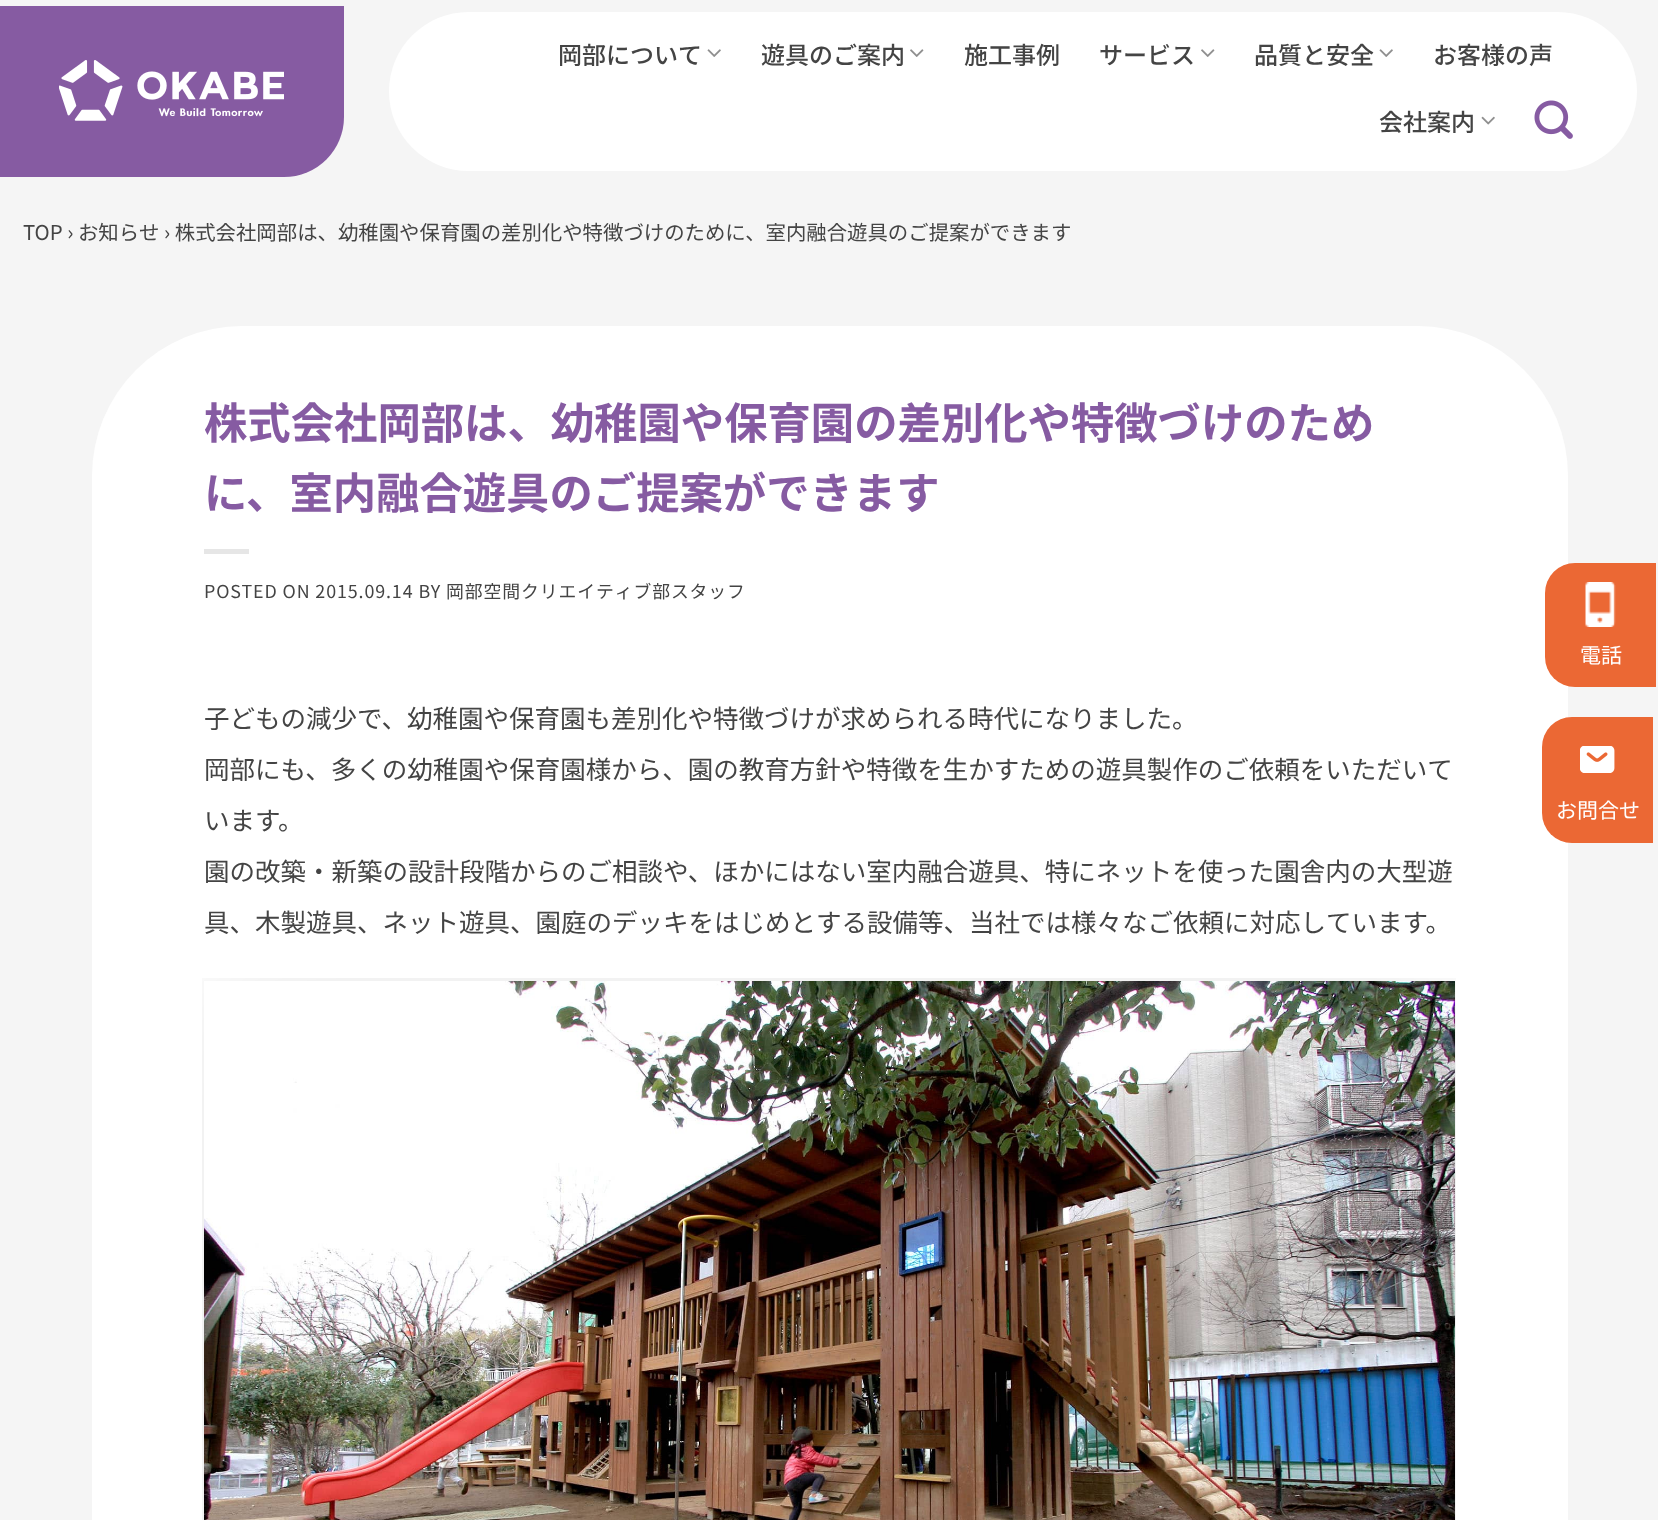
<!DOCTYPE html>
<meta charset="utf-8">
<style>body { margin: 0 } canvas { display: block }</style>
<canvas id="canvas" width="1658" height="1520"></canvas>
<script type="module">
  const canvas = document.getElementById("canvas");
  const ctx = canvas.getContext("2d");
  ctx.miterLimit = 4;
  ctx.fontKerning = "normal";
  async function loadImage(src) {
    const img = new Image();
    img.src = src;
    await img.decode();
    return img;
  }

  ctx.fillStyle = "#f5f5f5";
  ctx.fillRect(0, 0, 1658, 1520);
  ctx.fillStyle = "#865ba2";
  ctx.beginPath();
  ctx.roundRect(0, 6, 344, 171, [0, 0, 60, 0]);
  ctx.fill();
  ctx.drawImage(await loadImage("img1.png"), 59, 60, 225, 61);
  ctx.fillStyle = "#ffffff";
  ctx.beginPath();
  ctx.roundRect(389, 12, 1248, 159, 79.5);
  ctx.fill();
  ctx.font = "500 24px Noto Sans JP";
  ctx.fillStyle = "#444444";
  ctx.fillText("岡部について", 558, 64);
  ctx.drawImage(await loadImage("img2.png"), 707, 49, 14, 8);
  ctx.fillText("遊具のご案内", 761, 64);
  ctx.drawImage(await loadImage("img3.png"), 910, 49, 14, 8);
  ctx.fillText("施工事例", 964, 64);
  ctx.fillText("サービス", 1099, 64);
  ctx.drawImage(await loadImage("img3.png"), 1201, 49, 14, 8);
  ctx.fillText("品質と安全", 1254, 64);
  ctx.drawImage(await loadImage("img2.png"), 1379, 49, 14, 8);
  ctx.fillText("お客様の声", 1433, 64);
  ctx.fillText("会社案内", 1379, 131);
  ctx.drawImage(await loadImage("img4.png"), 1481, 116, 14, 9);
  ctx.drawImage(await loadImage("img5.png"), 1534, 100, 39, 39);
  ctx.font = "20.4px Noto Sans JP";
  ctx.fillText("TOP › お知らせ › 株式会社岡部は、幼稚園や保育園の差別化や特徴づけのために、室内融合遊具のご提案ができます", 23, 240);
  ctx.fillStyle = "#ffffff";
  ctx.beginPath();
  ctx.roundRect(92, 326, 1476, 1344, 150);
  ctx.fill();
  ctx.font = "bold 43.35px Noto Sans JP";
  ctx.fillStyle = "#865ba2";
  ctx.fillText("株式会社岡部は、幼稚園や保育園の差別化や特徴づけのため", 204, 439);
  ctx.fillText("に、室内融合遊具のご提案ができます", 204, 509);
  ctx.fillStyle = "#e6e6e6";
  ctx.fillRect(204, 549, 45, 5);
  ctx.letterSpacing = "0.9px";
  ctx.font = "17.85px Noto Sans JP";
  ctx.fillStyle = "#444444";
  ctx.fillText("POSTED ON 2015.09.14 BY 岡部空間クリエイティブ部スタッフ", 204, 598);
  ctx.letterSpacing = "0px";
  ctx.font = "25.5px Noto Sans JP";
  ctx.fillText("子どもの減少で、幼稚園や保育園も差別化や特徴づけが求められる時代になりました。", 204, 728);
  ctx.fillText("岡部にも、多くの幼稚園や保育園様から、園の教育方針や特徴を生かすための遊具製作のご依頼をいただいて", 204, 779);
  ctx.fillText("います。", 204, 830);
  ctx.fillText("園の改築・新築の設計段階からのご相談や、ほかにはない室内融合遊具、特にネットを使った園舎内の大型遊", 204, 881);
  ctx.fillText("具、木製遊具、ネット遊具、園庭のデッキをはじめとする設備等、当社では様々なご依頼に対応しています。", 204, 932);
  ctx.drawImage(await loadImage("img6.png"), 202, 978, 1254, 542);
  ctx.fillStyle = "#eb6834";
  ctx.beginPath();
  ctx.roundRect(1545, 563, 111, 124, [30, 0, 0, 30]);
  ctx.fill();
  ctx.drawImage(await loadImage("img7.png"), 1585, 582, 31, 45);
  ctx.font = "21px Noto Sans JP";
  ctx.fillStyle = "#ffffff";
  ctx.fillText("電話", 1580, 663);
  ctx.fillStyle = "#eb6834";
  ctx.beginPath();
  ctx.roundRect(1542, 717, 111, 126, [30, 0, 0, 30]);
  ctx.fill();
  ctx.drawImage(await loadImage("img8.png"), 1580, 746, 35, 27);
  ctx.fillStyle = "#ffffff";
  ctx.fillText("お問合せ", 1556, 818);
</script>
